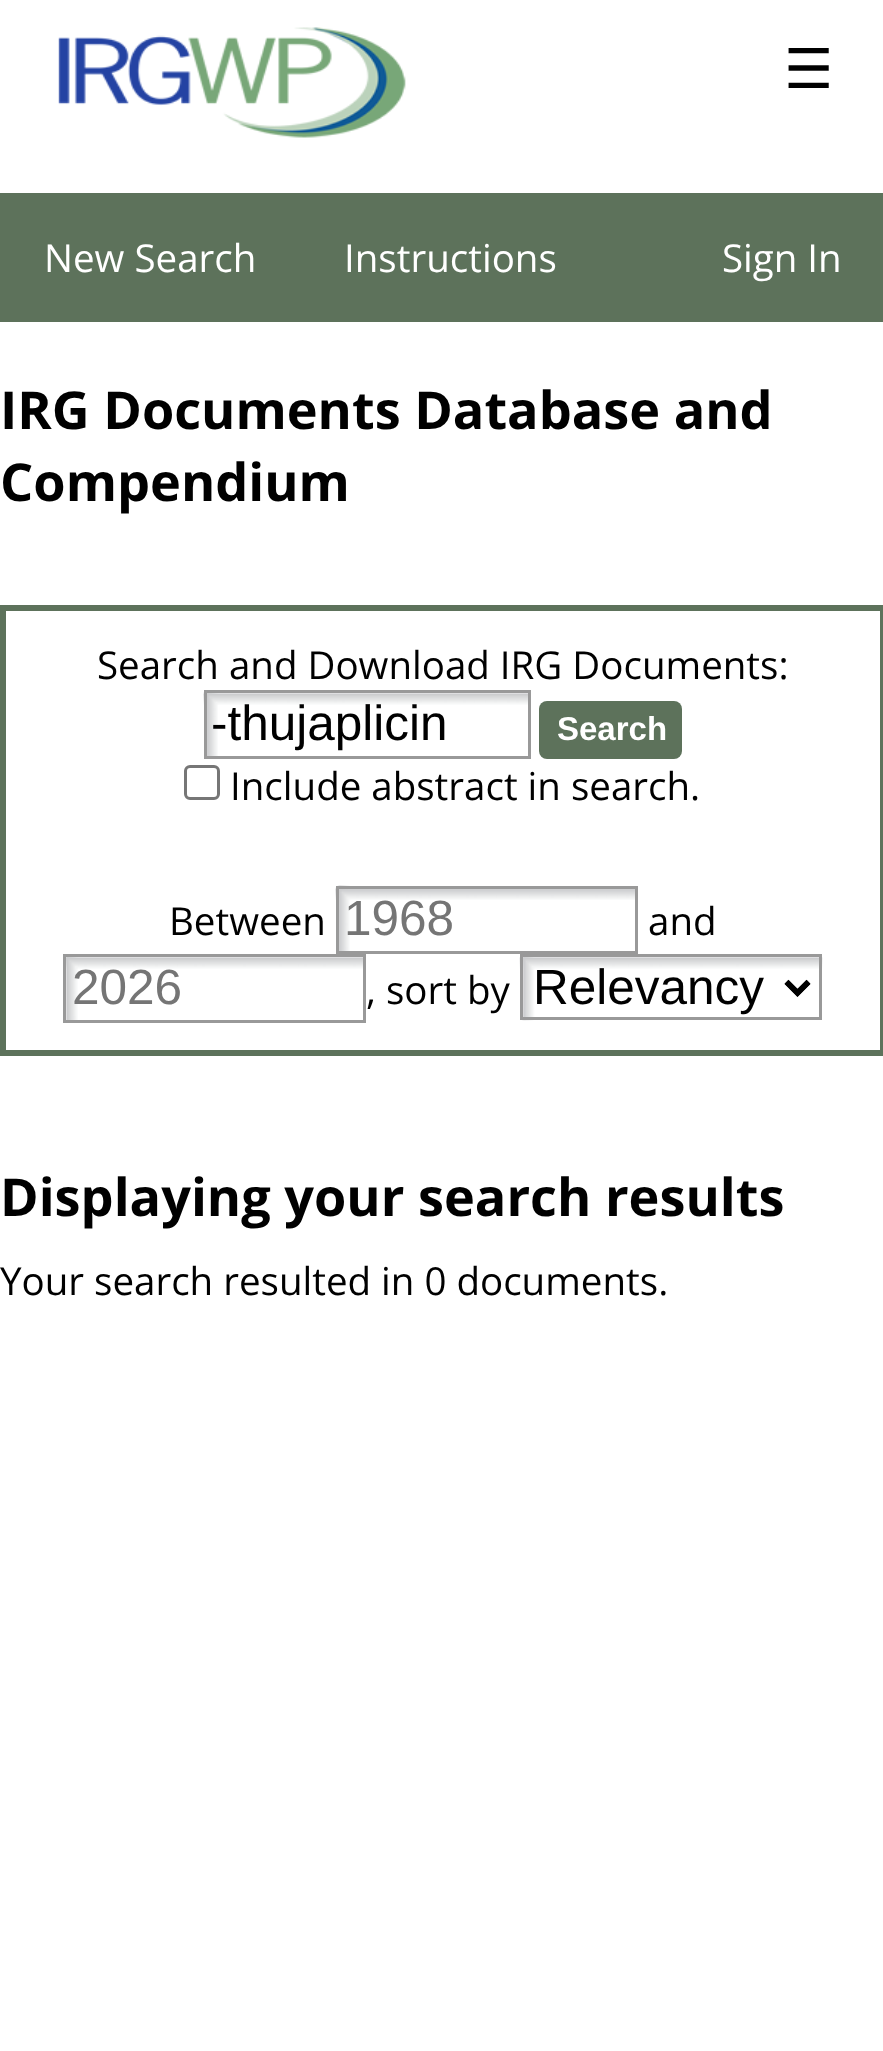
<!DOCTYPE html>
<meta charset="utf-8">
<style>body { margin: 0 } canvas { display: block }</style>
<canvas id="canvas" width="883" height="2051"></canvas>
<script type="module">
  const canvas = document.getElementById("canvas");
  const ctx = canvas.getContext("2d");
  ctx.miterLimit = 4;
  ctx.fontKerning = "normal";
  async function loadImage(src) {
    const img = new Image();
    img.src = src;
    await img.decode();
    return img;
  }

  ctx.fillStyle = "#ffffff";
  ctx.fillRect(0, 0, 883, 2051);
  ctx.drawImage(await loadImage("img1.png"), 58, 27, 348, 111);
  ctx.font = "55px DejaVu Sans";
  ctx.fillStyle = "#000000";
  ctx.fillText("☰", 784, 88);
  ctx.fillStyle = "#5d725b";
  ctx.fillRect(0, 193, 883, 129);
  ctx.font = "38.5px Open Sans";
  ctx.fillStyle = "#ffffff";
  ctx.fillText("New Search", 44, 272);
  ctx.fillText("Instructions", 344, 272);
  ctx.fillText("Sign In", 722, 272);
  ctx.font = "bold 52.25px Open Sans";
  ctx.fillStyle = "#000000";
  ctx.fillText("IRG Documents Database and", 0, 429);
  ctx.fillText("Compendium", 0, 501);
  ctx.strokeStyle = "#5d725b";
  ctx.lineWidth = 6;
  ctx.strokeRect(3, 608, 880, 445);
  ctx.font = "38.5px Open Sans";
  ctx.fillText("Search and Download IRG Documents:", 97, 679);
  ctx.drawImage(await loadImage("img2.png"), 203, 692, 325, 64);
  ctx.strokeStyle = "#999999";
  ctx.lineWidth = 3;
  ctx.strokeRect(205.5, 691.5, 324, 66);
  ctx.font = "49.5px Liberation Sans";
  ctx.fillText("-thujaplicin", 211, 740);
  ctx.fillStyle = "#5d725b";
  ctx.beginPath();
  ctx.roundRect(539, 701, 143, 58, 8);
  ctx.fill();
  ctx.font = "bold 33px Liberation Sans";
  ctx.fillStyle = "#ffffff";
  ctx.fillText("Search", 557, 740);
  ctx.beginPath();
  ctx.roundRect(185.5, 766.5, 33, 32, 4.5);
  ctx.strokeStyle = "#767676";
  ctx.stroke();
  ctx.font = "38.5px Open Sans";
  ctx.fillStyle = "#000000";
  ctx.fillText("Include abstract in search.", 230, 800);
  ctx.fillText("Between", 169, 935);
  ctx.drawImage(await loadImage("img3.png"), 335, 885, 300, 66);
  ctx.strokeStyle = "#999999";
  ctx.strokeRect(337.5, 887.5, 299, 65);
  ctx.font = "49.5px Liberation Sans";
  ctx.fillStyle = "#757575";
  ctx.fillText("1968", 344, 935);
  ctx.font = "38.5px Open Sans";
  ctx.fillStyle = "#000000";
  ctx.fillText("and", 648, 935);
  ctx.drawImage(await loadImage("img4.png"), 66, 957, 297, 63);
  ctx.strokeRect(64.5, 955.5, 300, 66);
  ctx.font = "49.5px Liberation Sans";
  ctx.fillStyle = "#757575";
  ctx.fillText("2026", 72, 1004);
  ctx.font = "38.5px Open Sans";
  ctx.fillStyle = "#000000";
  ctx.fillText(", sort by", 366, 1004);
  ctx.drawImage(await loadImage("img5.png"), 519, 957, 304, 64);
  ctx.strokeRect(521.5, 955.5, 299, 63);
  ctx.beginPath();
  ctx.moveTo(786.5, 982);
  ctx.lineTo(797.5, 993);
  ctx.lineTo(808.5, 982);
  ctx.strokeStyle = "#000000";
  ctx.lineWidth = 5.5;
  ctx.stroke();
  ctx.font = "49.5px Liberation Sans";
  ctx.fillText("Relevancy", 533, 1004);
  ctx.font = "bold 52.25px Open Sans";
  ctx.fillText("Displaying your search results", 0, 1216);
  ctx.font = "38.5px Open Sans";
  ctx.fillText("Your search resulted in 0 documents.", 0, 1295);
</script>
